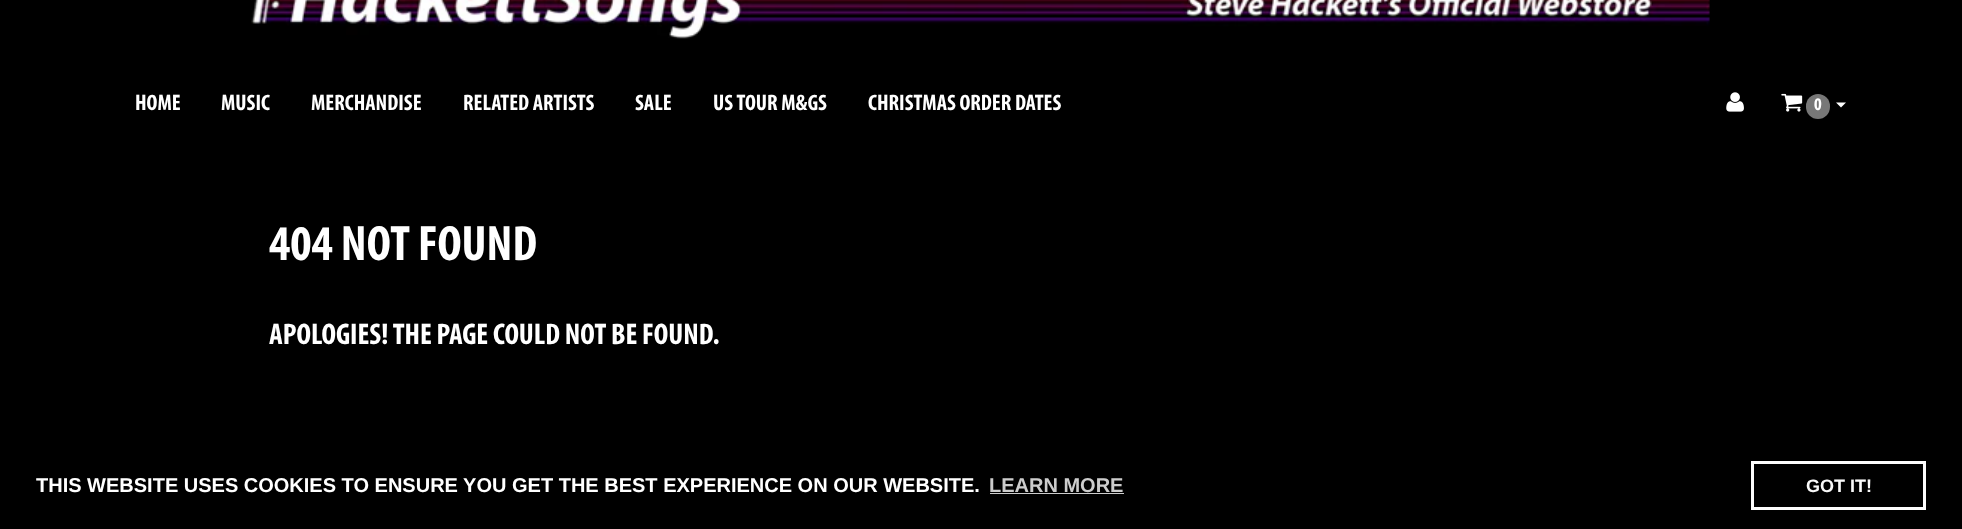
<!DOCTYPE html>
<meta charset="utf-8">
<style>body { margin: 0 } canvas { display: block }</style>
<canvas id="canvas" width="1962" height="529"></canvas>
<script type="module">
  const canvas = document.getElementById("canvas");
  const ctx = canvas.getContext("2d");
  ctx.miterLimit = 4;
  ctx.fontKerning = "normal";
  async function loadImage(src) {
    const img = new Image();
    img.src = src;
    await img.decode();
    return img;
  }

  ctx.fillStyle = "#000000";
  ctx.fillRect(0, 0, 1962, 529);
  ctx.drawImage(await loadImage("img1.png"), 251, 0, 1459, 39);
  ctx.font = "bold 22.5px Myriad";
  ctx.fillStyle = "#ffffff";
  ctx.fillText("HOME", 135, 110);
  ctx.fillText("MUSIC", 221, 110);
  ctx.fillText("MERCHANDISE", 311, 110);
  ctx.fillText("RELATED ARTISTS", 463, 110);
  ctx.fillText("SALE", 635, 110);
  ctx.fillText("US TOUR M&GS", 713, 110);
  ctx.fillText("CHRISTMAS ORDER DATES", 868, 110);
  ctx.drawImage(await loadImage("img2.png"), 1726, 92, 18, 20);
  ctx.drawImage(await loadImage("img3.png"), 1781, 93, 22, 19);
  ctx.fillStyle = "#777777";
  ctx.beginPath();
  ctx.roundRect(1806, 94, 24, 25, 12);
  ctx.fill();
  ctx.font = "bold 18px Myriad";
  ctx.fillStyle = "#ffffff";
  ctx.fillText("0", 1814, 110);
  ctx.beginPath();
  ctx.moveTo(1836, 102.5);
  ctx.lineTo(1846, 102.5);
  ctx.lineTo(1841, 107.5);
  ctx.closePath();
  ctx.fill();
  ctx.font = "bold 50px Myriad";
  ctx.fillText("404 NOT FOUND", 269, 260);
  ctx.font = "bold 30px Myriad";
  ctx.fillText("APOLOGIES! THE PAGE COULD NOT BE FOUND.", 269, 344);
  ctx.font = "bold 20px Liberation Sans";
  ctx.fillText("THIS WEBSITE USES COOKIES TO ENSURE YOU GET THE BEST EXPERIENCE ON OUR WEBSITE.", 36, 492);
  ctx.fillStyle = "#cccccc";
  ctx.fillText("LEARN MORE", 989, 492);
  ctx.fillRect(990, 493, 134, 1);
  ctx.strokeStyle = "#fdfdfd";
  ctx.lineWidth = 3;
  ctx.strokeRect(1752.5, 462.5, 172, 46);
  ctx.font = "bold 18px Liberation Sans";
  ctx.fillStyle = "#f9f9f9";
  ctx.fillText("GOT IT!", 1806, 492);
</script>
